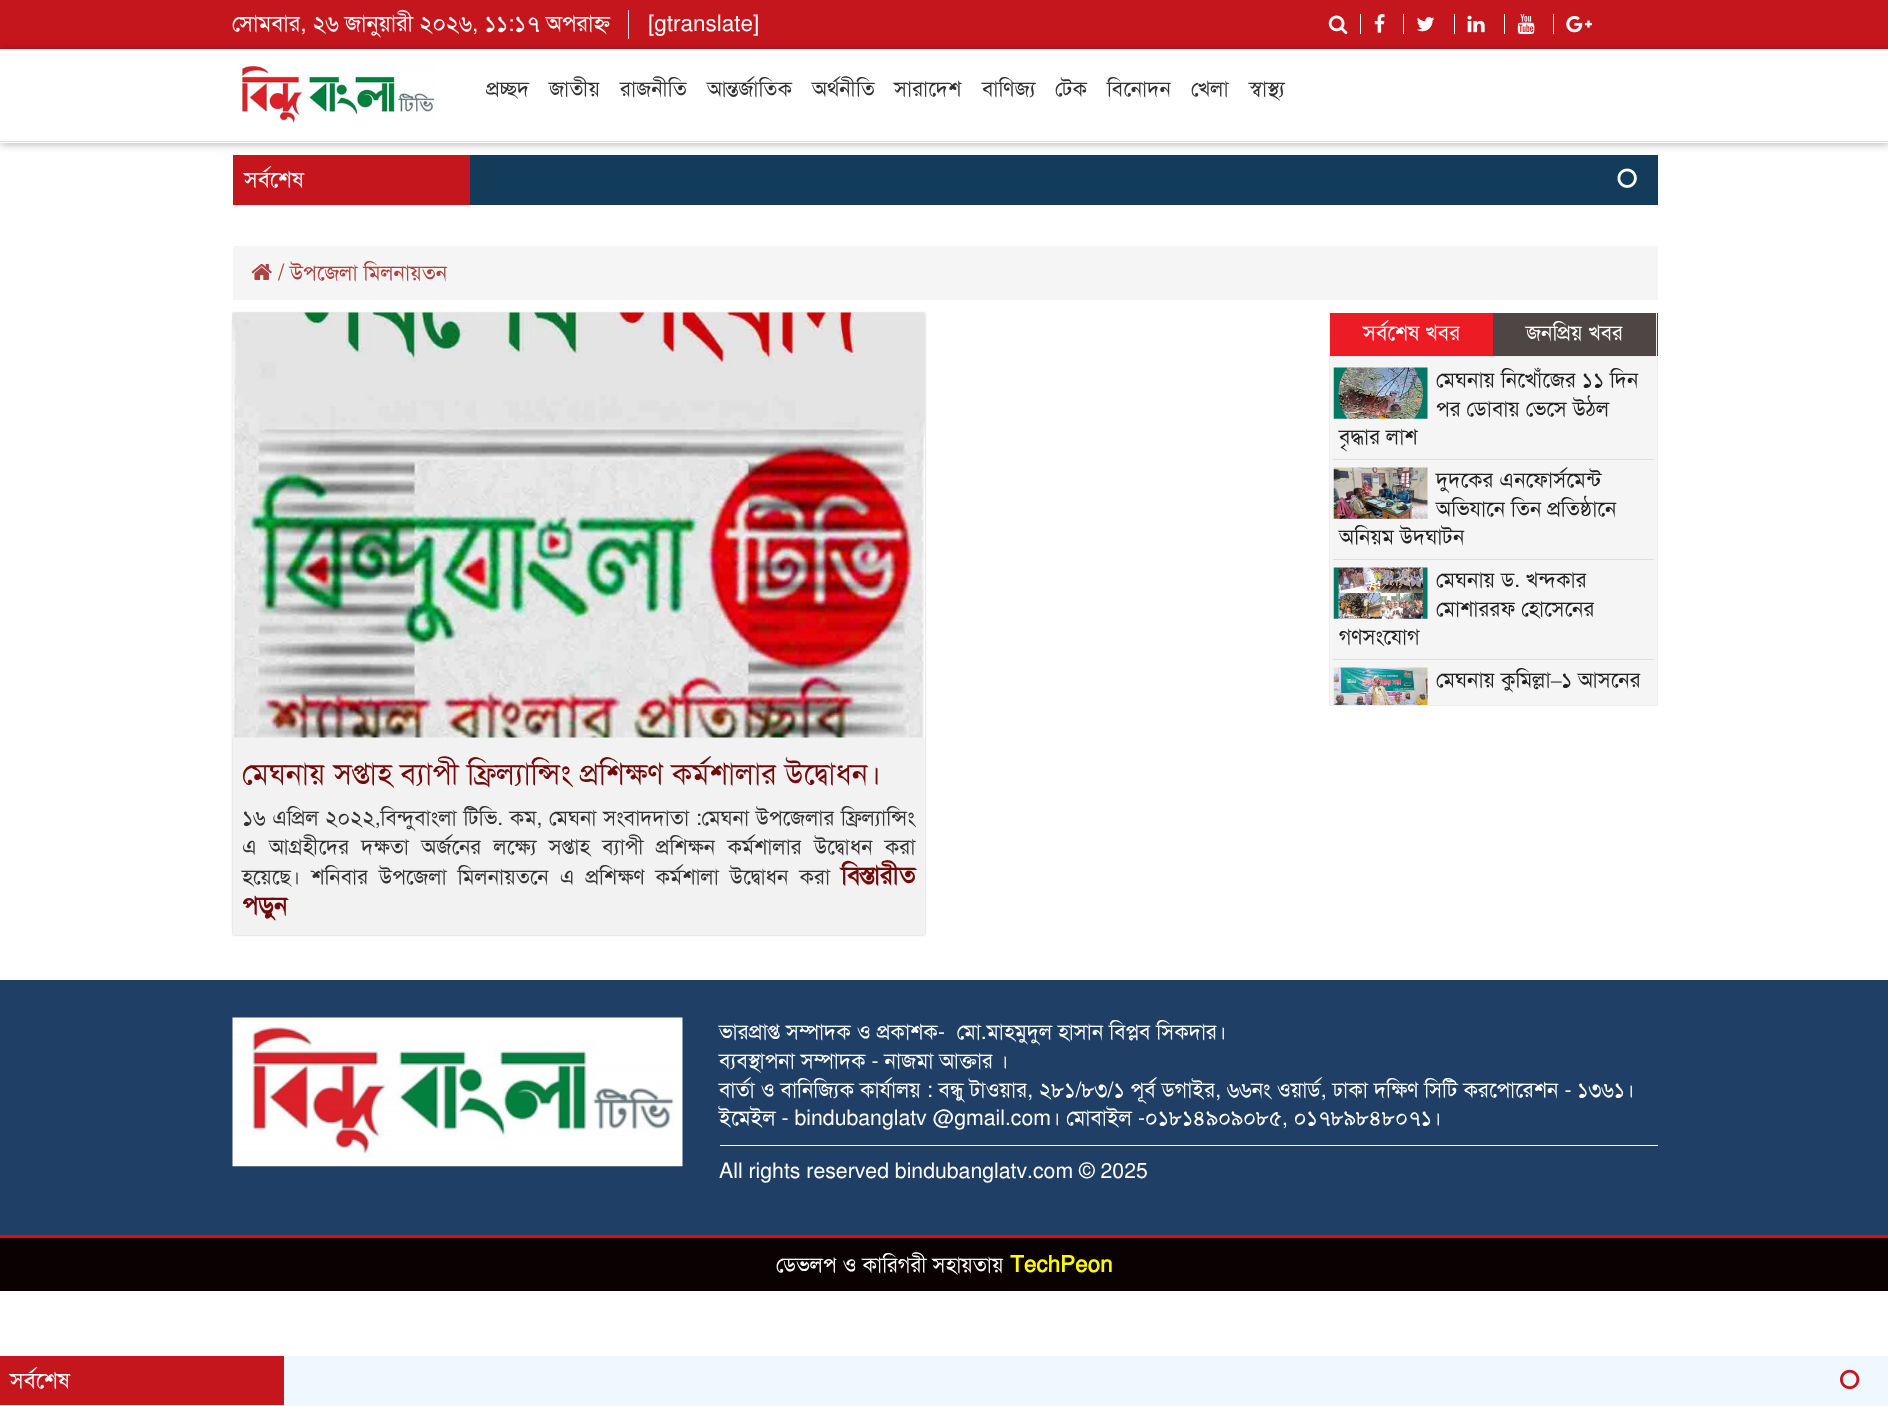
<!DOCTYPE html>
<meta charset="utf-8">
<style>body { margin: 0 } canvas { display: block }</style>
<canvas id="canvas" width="1888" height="1406"></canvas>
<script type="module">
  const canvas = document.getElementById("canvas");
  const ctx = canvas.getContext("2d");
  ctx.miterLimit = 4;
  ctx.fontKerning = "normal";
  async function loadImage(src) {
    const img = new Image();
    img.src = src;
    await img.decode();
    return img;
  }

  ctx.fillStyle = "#ffffff";
  ctx.fillRect(0, 0, 1888, 1406);
  ctx.fillStyle = "#c5161d";
  ctx.fillRect(0, 0, 1888, 49);
  ctx.fillStyle = "rgba(0, 0, 0, 0.3)";
  ctx.filter = "blur(4px)";
  ctx.beginPath();
  ctx.rect(1, 50, 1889, 94);
  ctx.fill();
  ctx.filter = "none";
  ctx.fillStyle = "#dddddd";
  ctx.fillRect(628, 10, 1, 29);
  ctx.font = "22.5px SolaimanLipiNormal";
  ctx.fillStyle = "#ffffff";
  ctx.fillText("সোমবার, ২৬ জানুয়ারী ২০২৬, ১১:১৭ অপরাহ্ন", 232, 31);
  ctx.fillText("[gtranslate]", 648, 31);
  ctx.drawImage(await loadImage("img1.png"), 1328, 15, 20, 20);
  ctx.fillRect(1360, 14, 1, 20);
  ctx.drawImage(await loadImage("img2.png"), 1374, 14, 11, 19);
  ctx.fillRect(1403, 14, 1, 20);
  ctx.drawImage(await loadImage("img3.png"), 1417, 17, 18, 15);
  ctx.fillRect(1454, 14, 1, 20);
  ctx.drawImage(await loadImage("img4.png"), 1467, 15, 18, 18);
  ctx.fillRect(1504, 14, 1, 20);
  ctx.drawImage(await loadImage("img5.png"), 1517, 14, 18, 21);
  ctx.fillRect(1553, 14, 1, 20);
  ctx.drawImage(await loadImage("img6.png"), 1566, 15, 26, 18);
  ctx.fillRect(0, 49, 1888, 94);
  ctx.fillStyle = "#dddddd";
  ctx.fillRect(0, 141, 1888, 1);
  ctx.drawImage(await loadImage("img7.png"), 241, 65, 194, 60);
  ctx.font = "21.25px SolaimanLipiNormal";
  ctx.fillStyle = "#333333";
  ctx.fillText("প্রচ্ছদ", 486, 96);
  ctx.fillText("জাতীয়", 549, 96);
  ctx.fillText("রাজনীতি", 620, 96);
  ctx.fillText("আন্তর্জাতিক", 707, 96);
  ctx.fillText("অর্থনীতি", 812, 96);
  ctx.fillText("সারাদেশ", 894, 96);
  ctx.fillText("বাণিজ্য", 982, 96);
  ctx.fillText("টেক", 1055, 96);
  ctx.fillText("বিনোদন", 1107, 96);
  ctx.fillText("খেলা", 1191, 96);
  ctx.fillText("স্বাস্থ্য", 1249, 96);
  ctx.fillStyle = "#c5161d";
  ctx.fillRect(233, 155, 237, 50);
  ctx.font = "22.5px SolaimanLipiNormal";
  ctx.fillStyle = "#ffffff";
  ctx.fillText("সর্বশেষ", 244, 187);
  ctx.fillStyle = "#133b5a";
  ctx.fillRect(470, 155, 1188, 50);
  ctx.drawImage(await loadImage("img8.png"), 1617, 168, 20, 20);
  ctx.fillStyle = "#f5f5f5";
  ctx.fillRect(233, 246, 1425, 54);
  ctx.drawImage(await loadImage("img9.png"), 251, 263, 21, 17);
  ctx.fillStyle = "#a94442";
  ctx.fillText("/", 278, 280);
  ctx.font = "21.25px SolaimanLipiNormal";
  ctx.fillText("উপজেলা মিলনায়তন", 290, 280);
  ctx.fillStyle = "#4e4545";
  ctx.fillRect(1493, 313, 165, 43);
  ctx.fillStyle = "#eeeeee";
  ctx.fillRect(1656, 313, 1, 43);
  ctx.fillRect(1329, 313, 1, 43);
  ctx.fillStyle = "#ed1b24";
  ctx.fillRect(1330, 313, 163, 43);
  ctx.fillStyle = "#ffffff";
  ctx.fillText("সর্বশেষ খবর", 1363, 340);
  ctx.fillText("জনপ্রিয় খবর", 1526, 340);
  ctx.fillStyle = "#f5f5f5";
  ctx.beginPath();
  ctx.rect(1329.5, 356.5, 328, 349);
  ctx.fill();
  ctx.strokeStyle = "#eeeeee";
  ctx.stroke();
  ctx.fillStyle = "#dddddd";
  ctx.fillRect(1333, 459, 321, 1);
  ctx.drawImage(await loadImage("img10.png"), 1333, 367, 95, 52);
  ctx.fillStyle = "#222222";
  ctx.fillText("মেঘনায় নিখোঁজের ১১ দিন", 1436, 387);
  ctx.fillText("পর ডোবায় ভেসে উঠল", 1436, 416);
  ctx.save();
  ctx.beginPath();
  ctx.rect(1333, 360, 321, 99);
  ctx.clip();
  ctx.fillText("বৃদ্ধার লাশ", 1339, 444);
  ctx.restore();
  ctx.fillStyle = "#dddddd";
  ctx.fillRect(1333, 559, 321, 1);
  ctx.drawImage(await loadImage("img11.png"), 1333, 467, 95, 52);
  ctx.fillStyle = "#222222";
  ctx.fillText("দুদকের এনফোর্সমেন্ট", 1436, 487);
  ctx.fillText("অভিযানে তিন প্রতিষ্ঠানে", 1436, 516);
  ctx.fillText("অনিয়ম উদঘাটন", 1339, 544);
  ctx.fillStyle = "#dddddd";
  ctx.fillRect(1333, 659, 321, 1);
  ctx.drawImage(await loadImage("img12.png"), 1333, 567, 95, 52);
  ctx.fillStyle = "#222222";
  ctx.fillText("মেঘনায় ড. খন্দকার", 1436, 587);
  ctx.fillText("মোশাররফ হোসেনের", 1436, 616);
  ctx.fillText("গণসংযোগ", 1339, 644);
  ctx.drawImage(await loadImage("img13.png"), 1333, 667, 95, 38);
  ctx.fillText("মেঘনায় কুমিল্লা", 1436, 687);
  ctx.font = "21.25px Liberation Serif";
  ctx.fillText("–", 1551, 687);
  ctx.font = "21.25px SolaimanLipiNormal";
  ctx.fillText("১ আসনের", 1561, 687);
  ctx.fillStyle = "#c1c0c0";
  ctx.filter = "blur(1px)";
  ctx.beginPath();
  ctx.rect(233, 313, 692, 622);
  ctx.fill();
  ctx.filter = "none";
  ctx.fillStyle = "#f2f2f2";
  ctx.fillRect(233, 737, 692, 198);
  ctx.drawImage(await loadImage("img14.png"), 232, 312, 693, 426);
  ctx.font = "30px SolaimanLipiNormal";
  ctx.fillStyle = "#710b0b";
  ctx.fillText("মেঘনায় সপ্তাহ ব্যাপী ফ্রিল্যান্সিং প্রশিক্ষণ কর্মশালার উদ্বোধন।", 242, 784);
  ctx.wordSpacing = "0.75px";
  ctx.font = "21.25px SolaimanLipiNormal";
  ctx.fillStyle = "#333333";
  ctx.fillText("১৬ এপ্রিল ২০২২,বিন্দুবাংলা টিভি. কম, মেঘনা সংবাদদাতা :মেঘনা উপজেলার ফ্রিল্যান্সিং", 242, 825);
  ctx.wordSpacing = "6.25px";
  ctx.fillText("এ আগ্রহীদের দক্ষতা অর্জনের লক্ষ্যে সপ্তাহ ব্যাপী প্রশিক্ষন কর্মশালার উদ্বোধন করা", 242, 854);
  ctx.wordSpacing = "5px";
  ctx.fillText("হয়েছে। শনিবার উপজেলা মিলনায়তনে এ প্রশিক্ষণ কর্মশালা উদ্বোধন করা", 242, 884);
  ctx.wordSpacing = "0px";
  ctx.font = "bold 25px SolaimanLipiNormal";
  ctx.fillStyle = "#710b0b";
  ctx.fillText("বিস্তারীত", 841, 884);
  ctx.fillText("পড়ুন", 242, 914);
  ctx.fillStyle = "#1f3f66";
  ctx.fillRect(0, 980, 1888, 255);
  ctx.drawImage(await loadImage("img15.png"), 232, 1017, 451, 150);
  ctx.font = "21.25px SolaimanLipiNormal";
  ctx.fillStyle = "#ffffff";
  ctx.fillText("ভারপ্রাপ্ত সম্পাদক ও প্রকাশক-  মো.মাহমুদুল হাসান বিপ্লব সিকদার।", 719, 1039);
  ctx.fillText("ব্যবস্থাপনা সম্পাদক - নাজমা আক্তার ।", 719, 1068);
  ctx.fillText("বার্তা ও বানিজ্যিক কার্যালয় : বন্ধু টাওয়ার, ২৮১/৮৩/১ পূর্ব ডগাইর, ৬৬নং ওয়ার্ড, ঢাকা দক্ষিণ সিটি করপোরেশন - ১৩৬১।", 719, 1097);
  ctx.fillText("ইমেইল - bindubanglatv @gmail.com। মোবাইল -০১৮১৪৯০৯০৮৫, ০১৭৮৯৮৪৮০৭১।", 719, 1125);
  ctx.fillRect(720, 1145, 938, 1);
  ctx.fillText("All rights reserved bindubanglatv.com © 2025", 719, 1178);
  ctx.fillStyle = "#0a0102";
  ctx.fillRect(0, 1238, 1888, 53);
  ctx.fillStyle = "#ff0000";
  ctx.fillRect(0, 1235, 1888, 3);
  ctx.fillStyle = "#ffffff";
  ctx.fillText("ডেভলপ ও কারিগরী সহায়তায়", 776, 1272);
  ctx.font = "bold 22.5px SolaimanLipiNormal";
  ctx.fillStyle = "#fffb02";
  ctx.fillText("TechPeon", 1010, 1272);
  ctx.fillStyle = "#f0f8ff";
  ctx.fillRect(0, 1356, 1888, 50);
  ctx.fillStyle = "#c5161d";
  ctx.fillRect(0, 1356, 284, 49);
  ctx.font = "22.5px SolaimanLipiNormal";
  ctx.fillStyle = "#ffffff";
  ctx.fillText("সর্বশেষ", 10, 1388);
  ctx.drawImage(await loadImage("img16.png"), 1840, 1369, 20, 21);
</script>
